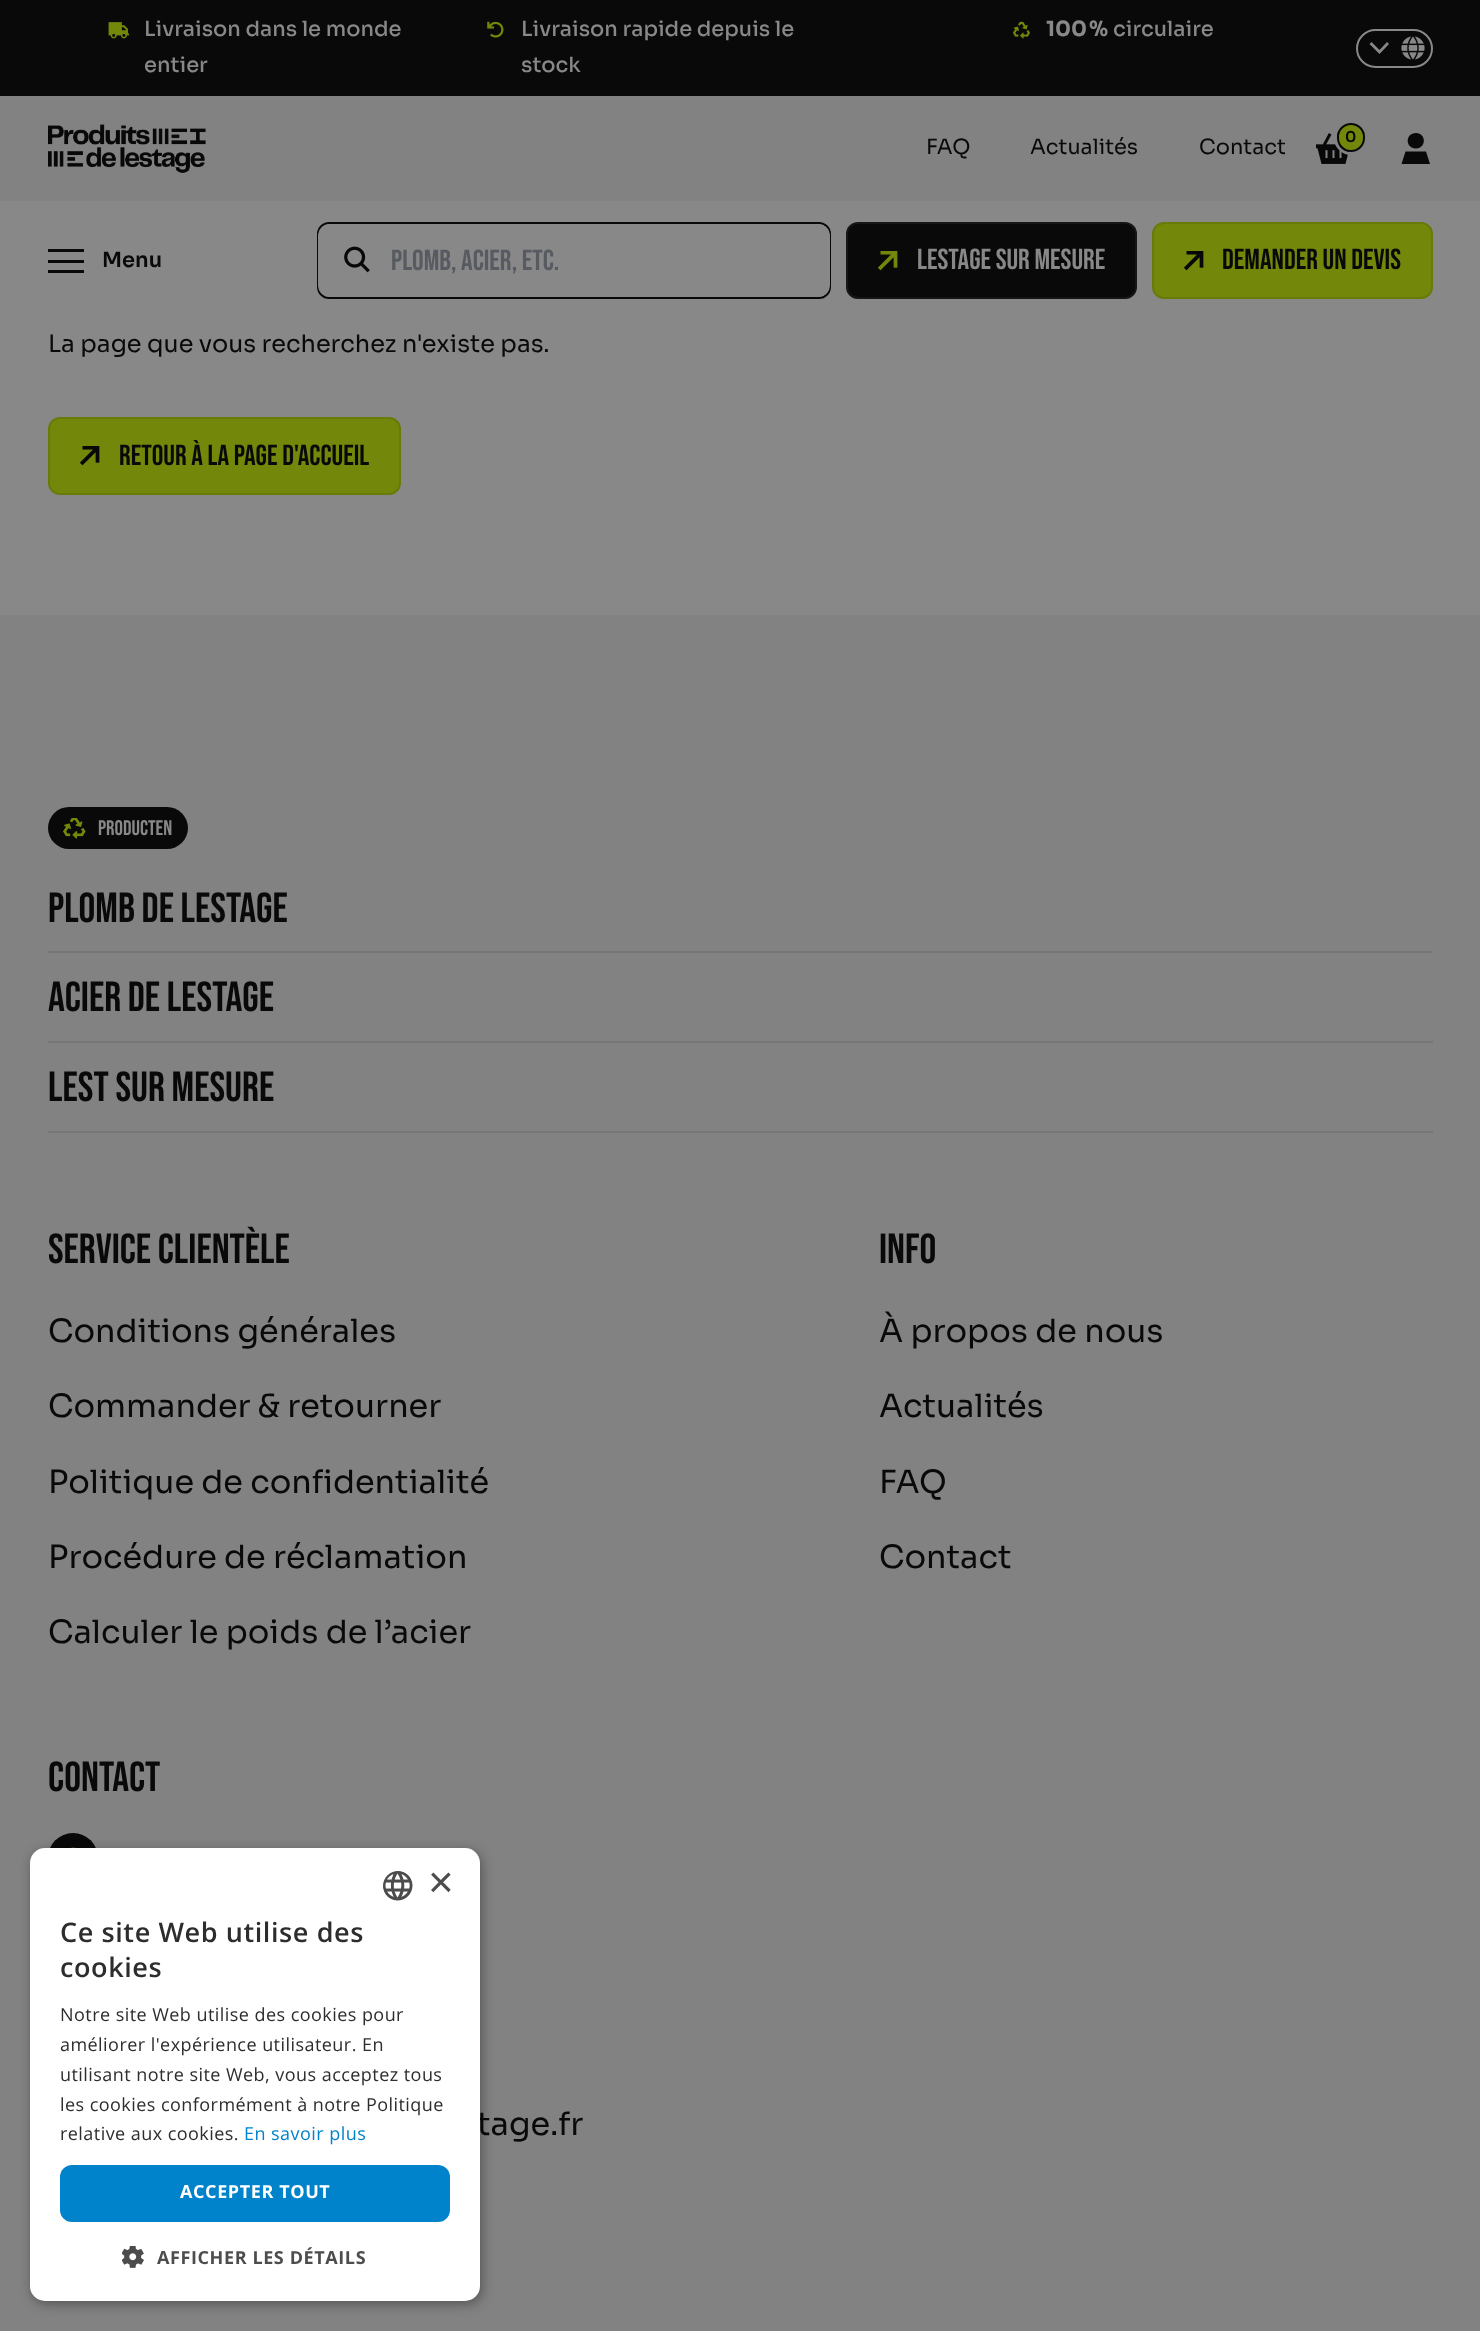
<!DOCTYPE html>
<meta charset="utf-8">
<style>body { margin: 0 } canvas { display: block }</style>
<canvas id="canvas" width="1480" height="2331"></canvas>
<script type="module">
  const canvas = document.getElementById("canvas");
  const ctx = canvas.getContext("2d");
  ctx.miterLimit = 4;
  ctx.fontKerning = "normal";
  async function loadImage(src) {
    const img = new Image();
    img.src = src;
    await img.decode();
    return img;
  }

  ctx.fillStyle = "#888888";
  ctx.fillRect(0, 0, 1480, 2331);
  ctx.fillStyle = "#090909";
  ctx.fillRect(0, 0, 1480, 96);
  ctx.drawImage(await loadImage("img1.png"), 108, 22, 21, 17);
  ctx.font = "500 21px Sora";
  ctx.fillStyle = "#888888";
  ctx.fillText("Livraison dans le monde", 144, 36);
  ctx.fillText("entier", 144, 72);
  ctx.drawImage(await loadImage("img2.png"), 487, 21, 17, 17);
  ctx.fillText("Livraison rapide depuis le", 521, 36);
  ctx.fillText("stock", 521, 72);
  ctx.drawImage(await loadImage("img3.png"), 1013, 21, 17, 18);
  ctx.font = "bold 21px Sora";
  ctx.fillText("100 %", 1046, 36);
  ctx.font = "500 21px Sora";
  ctx.fillText("circulaire", 1113, 36);
  ctx.beginPath();
  ctx.roundRect(1357, 30, 75, 37, 18.5);
  ctx.strokeStyle = "#888888";
  ctx.lineWidth = 2;
  ctx.stroke();
  ctx.beginPath();
  ctx.moveTo(1379.5, 54);
  ctx.lineTo(1369.5, 44);
  ctx.lineTo(1371.5, 42);
  ctx.lineTo(1379.5, 50);
  ctx.lineTo(1387, 42);
  ctx.lineTo(1389, 44);
  ctx.closePath();
  ctx.fill();
  ctx.drawImage(await loadImage("img4.png"), 1401, 36, 24, 24);
  ctx.fillStyle = "#828282";
  ctx.fillRect(0, 96, 1480, 105);
  ctx.drawImage(await loadImage("img5.png"), 48, 124, 158, 49);
  ctx.font = "21px Sora";
  ctx.fillStyle = "#090909";
  ctx.fillText("FAQ", 926, 154);
  ctx.fillText("Actualités", 1030, 154);
  ctx.fillText("Contact", 1199, 154);
  ctx.drawImage(await loadImage("img6.png"), 1316, 133, 33, 31);
  ctx.beginPath();
  ctx.roundRect(1335.5, 121.5, 31, 32, 15.5);
  ctx.strokeStyle = "#828282";
  ctx.lineWidth = 3;
  ctx.stroke();
  ctx.fillStyle = "#73880a";
  ctx.beginPath();
  ctx.roundRect(1338, 124, 26, 27, 13);
  ctx.fill();
  ctx.strokeStyle = "#090909";
  ctx.lineWidth = 2;
  ctx.stroke();
  ctx.font = "600 15px Sora";
  ctx.fillStyle = "#090909";
  ctx.fillText("0", 1345, 142);
  ctx.beginPath();
  ctx.moveTo(1416, 148.5);
  ctx.bezierCurveTo(1405, 148.5, 1405, 133, 1416, 133);
  ctx.bezierCurveTo(1426.5, 133, 1426.5, 148.5, 1416, 148.5);
  ctx.closePath();
  ctx.moveTo(1430, 164);
  ctx.lineTo(1401.5, 164);
  ctx.lineTo(1405.5, 151.5);
  ctx.lineTo(1426, 151.5);
  ctx.closePath();
  ctx.fill();
  ctx.fillRect(48, 260, 36, 3);
  ctx.fillRect(48, 249, 36, 3);
  ctx.fillRect(48, 270, 36, 3);
  ctx.font = "600 21px Sora";
  ctx.fillText("Menu", 102, 267);
  ctx.beginPath();
  ctx.roundRect(318, 223, 512, 75, 11);
  ctx.stroke();
  ctx.fillStyle = "#888888";
  ctx.beginPath();
  ctx.roundRect(318, 224, 512, 73, 12);
  ctx.fill();
  ctx.drawImage(await loadImage("img7.png"), 344, 246, 26, 27);
  ctx.font = "29px Bebas Neue";
  ctx.fillStyle = "#575a60";
  ctx.fillText("PLOMB, ACIER, ETC.", 391, 270);
  ctx.fillStyle = "#090909";
  ctx.beginPath();
  ctx.roundRect(846, 222, 291, 77, 12);
  ctx.fill();
  ctx.beginPath();
  ctx.roundRect(847, 223, 289, 75, 11);
  ctx.strokeStyle = "rgba(136, 136, 136, 0.1)";
  ctx.stroke();
  ctx.drawImage(await loadImage("img8.png"), 878, 251, 20, 20);
  ctx.fillStyle = "#888888";
  ctx.fillText("Lestage sur mesure", 917, 269);
  ctx.fillStyle = "#73880a";
  ctx.beginPath();
  ctx.roundRect(1152, 222, 281, 77, 12);
  ctx.fill();
  ctx.beginPath();
  ctx.roundRect(1153, 223, 279, 75, 11);
  ctx.strokeStyle = "rgba(9, 9, 9, 0.1)";
  ctx.stroke();
  ctx.drawImage(await loadImage("img9.png"), 1184, 251, 20, 20);
  ctx.fillStyle = "#090909";
  ctx.fillText("Demander un devis", 1222, 269);
  ctx.font = "24px Sora";
  ctx.fillText("La page que vous recherchez n'existe pas.", 48, 352);
  ctx.fillStyle = "#73880a";
  ctx.beginPath();
  ctx.roundRect(48, 417, 353, 78, 12);
  ctx.fill();
  ctx.beginPath();
  ctx.roundRect(49, 418, 351, 76, 11);
  ctx.stroke();
  ctx.drawImage(await loadImage("img9.png"), 80, 446, 20, 20);
  ctx.font = "29px Bebas Neue";
  ctx.fillStyle = "#090909";
  ctx.fillText("Retour à la page d'accueil", 119, 465);
  ctx.fillStyle = "#828282";
  ctx.fillRect(0, 615, 1480, 1716);
  ctx.fillStyle = "#767676";
  ctx.fillRect(48, 1131, 1385, 2);
  ctx.fillStyle = "#090909";
  ctx.beginPath();
  ctx.roundRect(48, 807, 140, 42, 21);
  ctx.fill();
  ctx.drawImage(await loadImage("img10.png"), 63, 818, 23, 21);
  ctx.font = "21px Bebas Neue";
  ctx.fillStyle = "#888888";
  ctx.fillText("Producten", 98, 835);
  ctx.fillStyle = "#767676";
  ctx.fillRect(48, 951, 1385, 2);
  ctx.font = "42px Bebas Neue";
  ctx.fillStyle = "#090909";
  ctx.fillText("Plomb de lestage", 48, 922);
  ctx.fillStyle = "#767676";
  ctx.fillRect(48, 1041, 1385, 2);
  ctx.fillStyle = "#090909";
  ctx.fillText("Acier de lestage", 48, 1011);
  ctx.fillText("Lest sur mesure", 48, 1101);
  ctx.fillText("Service clientèle", 48, 1263);
  ctx.font = "32px Sora";
  ctx.fillText("Conditions générales", 48, 1342);
  ctx.fillText("Commander & retourner", 48, 1417);
  ctx.fillText("Politique de confidentialité", 48, 1493);
  ctx.fillText("Procédure de réclamation", 48, 1568);
  ctx.fillText("Calculer le poids de l’acier", 48, 1643);
  ctx.font = "42px Bebas Neue";
  ctx.fillText("Info", 879, 1263);
  ctx.font = "32px Sora";
  ctx.fillText("À propos de nous", 879, 1342);
  ctx.fillText("Actualités", 879, 1417);
  ctx.fillText("FAQ", 879, 1493);
  ctx.fillText("Contact", 879, 1568);
  ctx.font = "42px Bebas Neue";
  ctx.fillText("Contact", 48, 1791);
  ctx.beginPath();
  ctx.arc(73, 1858, 25, 0, Math.PI * 2);
  ctx.fill();
  ctx.drawImage(await loadImage("img11.png"), 71, 1847, 5, 1);
  ctx.font = "32px Sora";
  ctx.fillText("tage.fr", 477, 2135);
  ctx.fillStyle = "rgba(0, 0, 0, 0.35)";
  ctx.filter = "blur(6px)";
  ctx.beginPath();
  ctx.roundRect(32, 1851, 450, 453, 15);
  ctx.fill();
  ctx.filter = "none";
  ctx.fillStyle = "#ffffff";
  ctx.beginPath();
  ctx.roundRect(30, 1848, 450, 453, 15);
  ctx.fill();
  ctx.drawImage(await loadImage("img12.png"), 383, 1871, 30, 30);
  ctx.font = "44px Liberation Sans";
  ctx.fillStyle = "#4d4d4d";
  ctx.fillText("×", 428, 1897);
  ctx.letterSpacing = "0.6px";
  ctx.font = "600 27px Open Sans";
  ctx.fillStyle = "#2d2d2d";
  ctx.fillText("Ce site Web utilise des", 60, 1942);
  ctx.fillText("cookies", 60, 1977);
  ctx.letterSpacing = "0.45px";
  ctx.font = "18px Open Sans";
  ctx.fillText("Notre site Web utilise des cookies pour", 60, 2021);
  ctx.fillText("améliorer l'expérience utilisateur. En", 60, 2051);
  ctx.fillText("utilisant notre site Web, vous acceptez tous", 60, 2081);
  ctx.fillText("les cookies conformément à notre Politique", 60, 2111);
  ctx.fillText("relative aux cookies.", 60, 2140);
  ctx.fillStyle = "#0083ca";
  ctx.fillText("En savoir plus", 244, 2140);
  ctx.beginPath();
  ctx.roundRect(60, 2165, 390, 57, 12);
  ctx.fill();
  ctx.letterSpacing = "0.6px";
  ctx.font = "bold 18px Open Sans";
  ctx.fillStyle = "#ffffff";
  ctx.fillText("ACCEPTER TOUT", 180, 2198);
  ctx.drawImage(await loadImage("img13.png"), 122, 2246, 22, 22);
  ctx.fillStyle = "#4d4d4d";
  ctx.fillText("AFFICHER LES DÉTAILS", 157, 2264);
</script>
